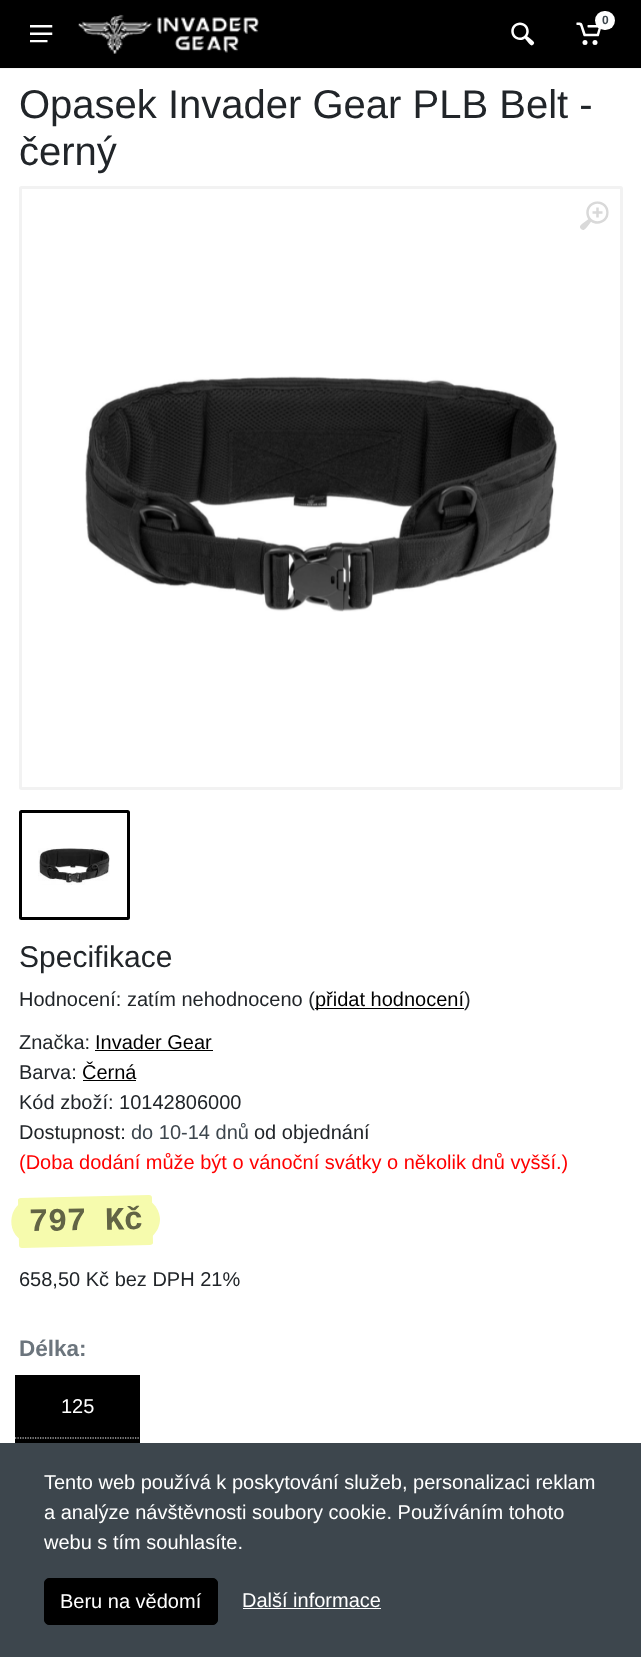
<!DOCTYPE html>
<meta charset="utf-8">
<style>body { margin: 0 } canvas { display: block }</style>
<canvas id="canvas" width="641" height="1657"></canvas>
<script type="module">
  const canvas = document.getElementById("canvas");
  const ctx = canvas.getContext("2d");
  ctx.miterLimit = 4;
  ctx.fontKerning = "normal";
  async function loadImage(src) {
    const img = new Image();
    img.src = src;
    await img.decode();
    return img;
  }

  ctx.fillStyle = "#ffffff";
  ctx.fillRect(0, 0, 641, 1657);
  ctx.fillStyle = "#f5f5f5";
  ctx.fillRect(0, 68, 641, 1);
  ctx.fillStyle = "#000000";
  ctx.fillRect(0, 0, 641, 68);
  ctx.drawImage(await loadImage("img1.png"), 78, 14, 181, 40);
  ctx.drawImage(await loadImage("img2.png"), 576, 22, 25, 23);
  ctx.fillStyle = "#ffffff";
  ctx.beginPath();
  ctx.roundRect(595, 11, 20, 19, 9.5);
  ctx.fill();
  ctx.font = "bold 12px Liberation Sans";
  ctx.fillStyle = "#3d464d";
  ctx.fillText("0", 602, 24);
  ctx.drawImage(await loadImage("img3.png"), 511, 22, 24, 24);
  ctx.drawImage(await loadImage("img4.png"), 30, 25, 23, 18);
  ctx.font = "40px Liberation Sans";
  ctx.fillStyle = "#212529";
  ctx.fillText("Opasek Invader Gear PLB Belt -", 19, 118);
  ctx.fillText("černý", 19, 165);
  ctx.beginPath();
  ctx.roundRect(20.5, 187.5, 601, 601, 1);
  ctx.strokeStyle = "#f2f2f2";
  ctx.lineWidth = 3;
  ctx.stroke();
  ctx.drawImage(await loadImage("img5.png"), 580, 201, 29, 29);
  ctx.drawImage(await loadImage("img6.png"), 85, 376, 473, 236);
  ctx.beginPath();
  ctx.roundRect(20.5, 811.5, 108, 107, 1);
  ctx.strokeStyle = "#000000";
  ctx.stroke();
  ctx.drawImage(await loadImage("img7.png"), 38, 848, 72, 37);
  ctx.font = "30px Liberation Sans";
  ctx.fillText("Specifikace", 19, 967);
  ctx.font = "20px Liberation Sans";
  ctx.fillText("Hodnocení:", 19, 1006);
  ctx.fillText("zatím nehodnoceno (", 127, 1006);
  ctx.fillStyle = "#000000";
  ctx.fillRect(315, 1008, 149, 1);
  ctx.fillText("přidat hodnocení", 315, 1006);
  ctx.fillStyle = "#212529";
  ctx.fillText(")", 464, 1006);
  ctx.fillText("Značka:", 19, 1049);
  ctx.fillStyle = "#000000";
  ctx.fillText("Invader Gear", 95, 1049);
  ctx.fillRect(95, 1050, 118, 1);
  ctx.fillStyle = "#212529";
  ctx.fillText("Barva:", 19, 1079);
  ctx.fillStyle = "#000000";
  ctx.fillText("Černá", 82, 1079);
  ctx.fillRect(83, 1080, 53, 1);
  ctx.fillStyle = "#212529";
  ctx.fillText("Kód zboží: 10142806000", 19, 1109);
  ctx.fillText("Dostupnost:", 19, 1139);
  ctx.fillStyle = "#3d464d";
  ctx.fillText("do 10-14 dnů", 131, 1139);
  ctx.fillStyle = "#212529";
  ctx.fillText("od objednání", 254, 1139);
  ctx.fillStyle = "#ff0000";
  ctx.fillText("(Doba dodání může být o vánoční svátky o několik dnů vyšší.)", 19, 1169);
  ctx.fillStyle = "#f6fbad";
  ctx.beginPath();
  ctx.moveTo(21, 1198);
  ctx.lineTo(149, 1195);
  ctx.bezierCurveTo(151, 1195, 152, 1196, 152, 1198);
  ctx.lineTo(153, 1243);
  ctx.bezierCurveTo(153, 1244, 151, 1245, 150, 1245);
  ctx.lineTo(22, 1248);
  ctx.bezierCurveTo(20, 1248, 19, 1247, 19, 1245);
  ctx.lineTo(18, 1200);
  ctx.bezierCurveTo(18, 1199, 19, 1198, 21, 1198);
  ctx.closePath();
  ctx.fill();
  ctx.beginPath();
  ctx.moveTo(33, 1199);
  ctx.lineTo(56, 1198);
  ctx.lineTo(57, 1243);
  ctx.bezierCurveTo(48, 1243, 33, 1245, 25, 1242);
  ctx.bezierCurveTo(3, 1233, 9, 1199, 33, 1199);
  ctx.closePath();
  ctx.fill();
  ctx.beginPath();
  ctx.moveTo(114, 1197);
  ctx.lineTo(137, 1197);
  ctx.bezierCurveTo(149, 1197, 159, 1206, 160, 1219);
  ctx.bezierCurveTo(160, 1231, 150, 1242, 138, 1242);
  ctx.lineTo(115, 1242);
  ctx.closePath();
  ctx.fill();
  ctx.letterSpacing = "-0.5px";
  ctx.font = "bold 32.5px Liberation Mono";
  ctx.fillStyle = "#626445";
  ctx.save();
  ctx.translate(29, 1231);
  ctx.rotate(-1 * Math.PI / 180);
  ctx.fillText("797 Kč", 0, 0);
  ctx.restore();
  ctx.letterSpacing = "0px";
  ctx.font = "20px Liberation Sans";
  ctx.fillStyle = "#212529";
  ctx.fillText("658,50 Kč bez DPH 21%", 19, 1286);
  ctx.font = "bold 22.5px Liberation Sans";
  ctx.fillStyle = "#6c757d";
  ctx.fillText("Délka:", 19, 1356);
  ctx.fillStyle = "#000000";
  ctx.fillRect(15, 1375, 125, 68);
  ctx.font = "20px Liberation Sans";
  ctx.fillStyle = "#ffffff";
  ctx.fillText("125", 61, 1413);
  ctx.beginPath();
  ctx.moveTo(15, 1438);
  ctx.lineTo(140, 1438);
  ctx.strokeStyle = "#ffffff";
  ctx.lineWidth = 1.2;
  ctx.setLineDash([1.25, 1.25]);
  ctx.stroke();
  ctx.fillStyle = "#3d464d";
  ctx.fillRect(0, 1443, 641, 214);
  ctx.fillStyle = "#ffffff";
  ctx.fillText("Tento web používá k poskytování služeb, personalizaci reklam", 44, 1489);
  ctx.fillText("a analýze návštěvnosti soubory cookie. Používáním tohoto", 44, 1519);
  ctx.fillText("webu s tím souhlasíte.", 44, 1549);
  ctx.fillStyle = "#000000";
  ctx.beginPath();
  ctx.roundRect(44.5, 1578.5, 173, 46, 4.5);
  ctx.fill();
  ctx.strokeStyle = "#000000";
  ctx.lineWidth = 1;
  ctx.setLineDash([]);
  ctx.stroke();
  ctx.fillStyle = "#ffffff";
  ctx.fillText("Beru na vědomí", 60, 1608);
  ctx.fillText("Další informace", 242, 1607);
  ctx.fillRect(243, 1608, 138, 1);
</script>
